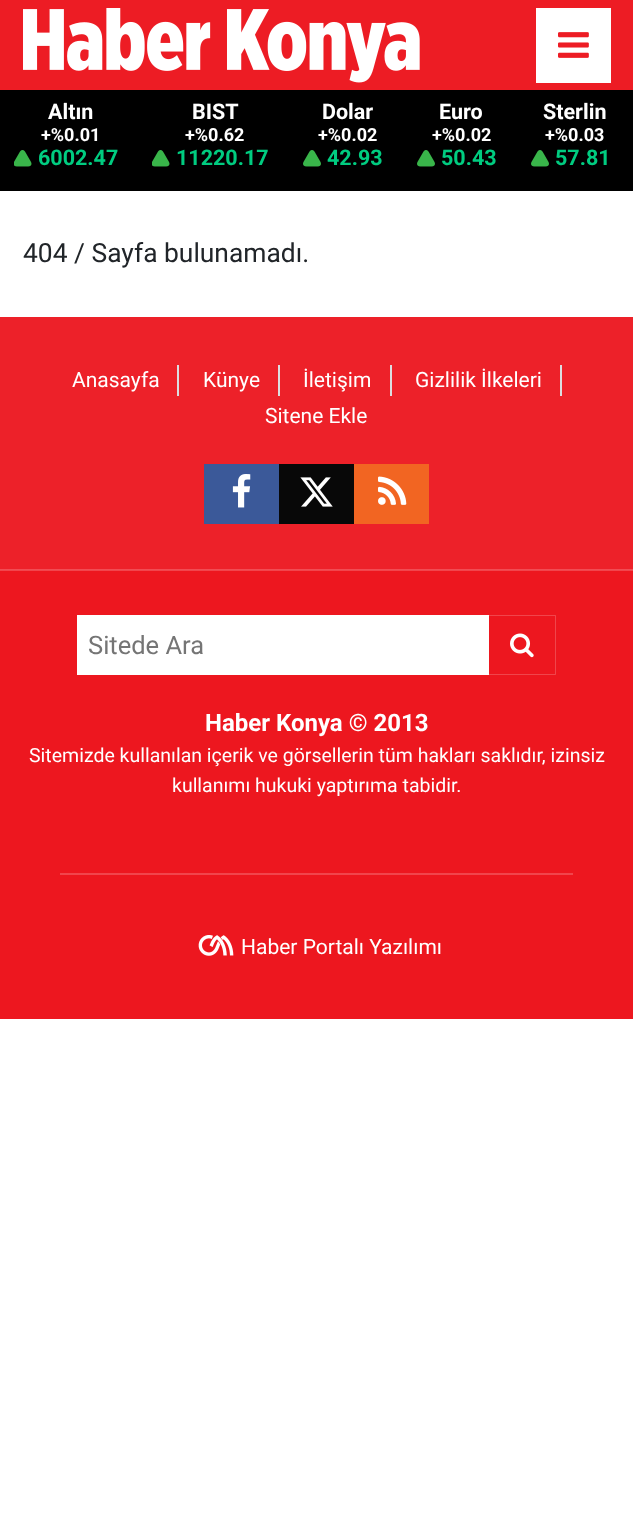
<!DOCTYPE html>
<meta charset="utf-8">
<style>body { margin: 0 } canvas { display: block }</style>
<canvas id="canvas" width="633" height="1522"></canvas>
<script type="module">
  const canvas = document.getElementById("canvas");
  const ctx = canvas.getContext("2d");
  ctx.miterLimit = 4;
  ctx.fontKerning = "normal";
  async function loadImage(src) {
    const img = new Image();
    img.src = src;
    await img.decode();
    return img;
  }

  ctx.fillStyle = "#ffffff";
  ctx.fillRect(0, 0, 633, 1522);
  ctx.fillStyle = "#ed1c24";
  ctx.fillRect(0, 0, 633, 90);
  ctx.drawImage(await loadImage("img1.png"), 23, 8, 397, 75);
  ctx.fillStyle = "#ffffff";
  ctx.fillRect(536, 8, 75, 75);
  ctx.drawImage(await loadImage("img2.png"), 558, 32, 31, 26);
  ctx.fillStyle = "#000000";
  ctx.fillRect(0, 90, 633, 101);
  ctx.font = "bold 21.5px Roboto";
  ctx.fillStyle = "#ffffff";
  ctx.fillText("Altın", 48, 119);
  ctx.font = "bold 18px Roboto";
  ctx.fillText("+%0.01", 41, 141);
  ctx.drawImage(await loadImage("img3.png"), 14, 150, 18, 17);
  ctx.font = "bold 21.5px Roboto";
  ctx.fillStyle = "#00cc80";
  ctx.fillText("6002.47", 38, 165);
  ctx.fillStyle = "#ffffff";
  ctx.fillText("BIST", 192, 119);
  ctx.font = "bold 18px Roboto";
  ctx.fillText("+%0.62", 185, 141);
  ctx.drawImage(await loadImage("img3.png"), 152, 150, 18, 17);
  ctx.font = "bold 21.5px Roboto";
  ctx.fillStyle = "#00cc80";
  ctx.fillText("11220.17", 176, 165);
  ctx.fillStyle = "#ffffff";
  ctx.fillText("Dolar", 322, 119);
  ctx.font = "bold 18px Roboto";
  ctx.fillText("+%0.02", 318, 141);
  ctx.drawImage(await loadImage("img4.png"), 303, 150, 18, 17);
  ctx.font = "bold 21.5px Roboto";
  ctx.fillStyle = "#00cc80";
  ctx.fillText("42.93", 327, 165);
  ctx.fillStyle = "#ffffff";
  ctx.fillText("Euro", 439, 119);
  ctx.font = "bold 18px Roboto";
  ctx.fillText("+%0.02", 432, 141);
  ctx.drawImage(await loadImage("img4.png"), 417, 150, 18, 17);
  ctx.font = "bold 21.5px Roboto";
  ctx.fillStyle = "#00cc80";
  ctx.fillText("50.43", 441, 165);
  ctx.fillStyle = "#ffffff";
  ctx.fillText("Sterlin", 543, 119);
  ctx.font = "bold 18px Roboto";
  ctx.fillText("+%0.03", 545, 141);
  ctx.drawImage(await loadImage("img4.png"), 531, 150, 18, 17);
  ctx.font = "bold 21.5px Roboto";
  ctx.fillStyle = "#00cc80";
  ctx.fillText("57.81", 555, 165);
  ctx.font = "26.4px Roboto";
  ctx.fillStyle = "#212529";
  ctx.fillText("404 / Sayfa bulunamadı.", 23, 262);
  ctx.fillStyle = "#ed171f";
  ctx.fillRect(0, 571, 633, 448);
  ctx.fillStyle = "#f1454c";
  ctx.fillRect(0, 570, 633, 1);
  ctx.fillStyle = "#ed2129";
  ctx.fillRect(0, 317, 633, 252);
  ctx.fillStyle = "#f14d54";
  ctx.fillRect(0, 569, 633, 1);
  ctx.fillStyle = "#dcdddf";
  ctx.fillRect(177, 365, 2, 31);
  ctx.font = "21px Roboto";
  ctx.fillStyle = "#ffffff";
  ctx.fillText("Anasayfa", 72, 387);
  ctx.fillStyle = "#dcdddf";
  ctx.fillRect(278, 365, 2, 31);
  ctx.fillStyle = "#ffffff";
  ctx.fillText("Künye", 203, 387);
  ctx.fillStyle = "#dcdddf";
  ctx.fillRect(390, 365, 2, 31);
  ctx.fillStyle = "#ffffff";
  ctx.fillText("İletişim", 303, 387);
  ctx.fillStyle = "#dcdddf";
  ctx.fillRect(560, 365, 2, 31);
  ctx.fillStyle = "#ffffff";
  ctx.fillText("Gizlilik İlkeleri", 415, 387);
  ctx.fillText("Sitene Ekle", 265, 423);
  ctx.fillStyle = "#3b5999";
  ctx.fillRect(204, 464, 75, 60);
  ctx.drawImage(await loadImage("img5.png"), 232, 474, 19, 34);
  ctx.fillStyle = "#080808";
  ctx.fillRect(279, 464, 75, 60);
  ctx.drawImage(await loadImage("img6.png"), 300, 477, 33, 30);
  ctx.fillStyle = "#f26522";
  ctx.fillRect(354, 464, 75, 60);
  ctx.drawImage(await loadImage("img7.png"), 378, 476, 29, 29);
  ctx.fillStyle = "#ffffff";
  ctx.fillRect(77, 615, 412, 60);
  ctx.font = "25.5px Roboto";
  ctx.fillStyle = "#757575";
  ctx.fillText("Sitede Ara", 88, 654);
  ctx.fillStyle = "#f1454c";
  ctx.beginPath();
  ctx.moveTo(489, 615);
  ctx.lineTo(556, 615);
  ctx.lineTo(555, 616);
  ctx.lineTo(489, 616);
  ctx.closePath();
  ctx.fill();
  ctx.fillStyle = "rgba(255, 255, 255, 0.2)";
  ctx.beginPath();
  ctx.moveTo(556, 615);
  ctx.lineTo(556, 675);
  ctx.lineTo(555, 674);
  ctx.lineTo(555, 616);
  ctx.closePath();
  ctx.fill();
  ctx.beginPath();
  ctx.moveTo(556, 675);
  ctx.lineTo(489, 675);
  ctx.lineTo(489, 674);
  ctx.lineTo(555, 674);
  ctx.closePath();
  ctx.fill();
  ctx.drawImage(await loadImage("img8.png"), 510, 633, 24, 25);
  ctx.font = "bold 24px Roboto";
  ctx.fillStyle = "#ffffff";
  ctx.fillText("Haber Konya © 2013", 205, 731);
  ctx.font = "19.5px Roboto";
  ctx.fillText("Sitemizde kullanılan içerik ve görsellerin tüm hakları saklıdır, izinsiz", 29, 762);
  ctx.fillText("kullanımı hukuki yaptırıma tabidir.", 172, 792);
  ctx.fillStyle = "#f1454c";
  ctx.fillRect(60, 873, 513, 2);
  ctx.drawImage(await loadImage("img9.png"), 198, 935, 36, 21);
  ctx.font = "21px Roboto";
  ctx.fillStyle = "#ffffff";
  ctx.fillText("Haber Portalı Yazılımı", 241, 954);
</script>
